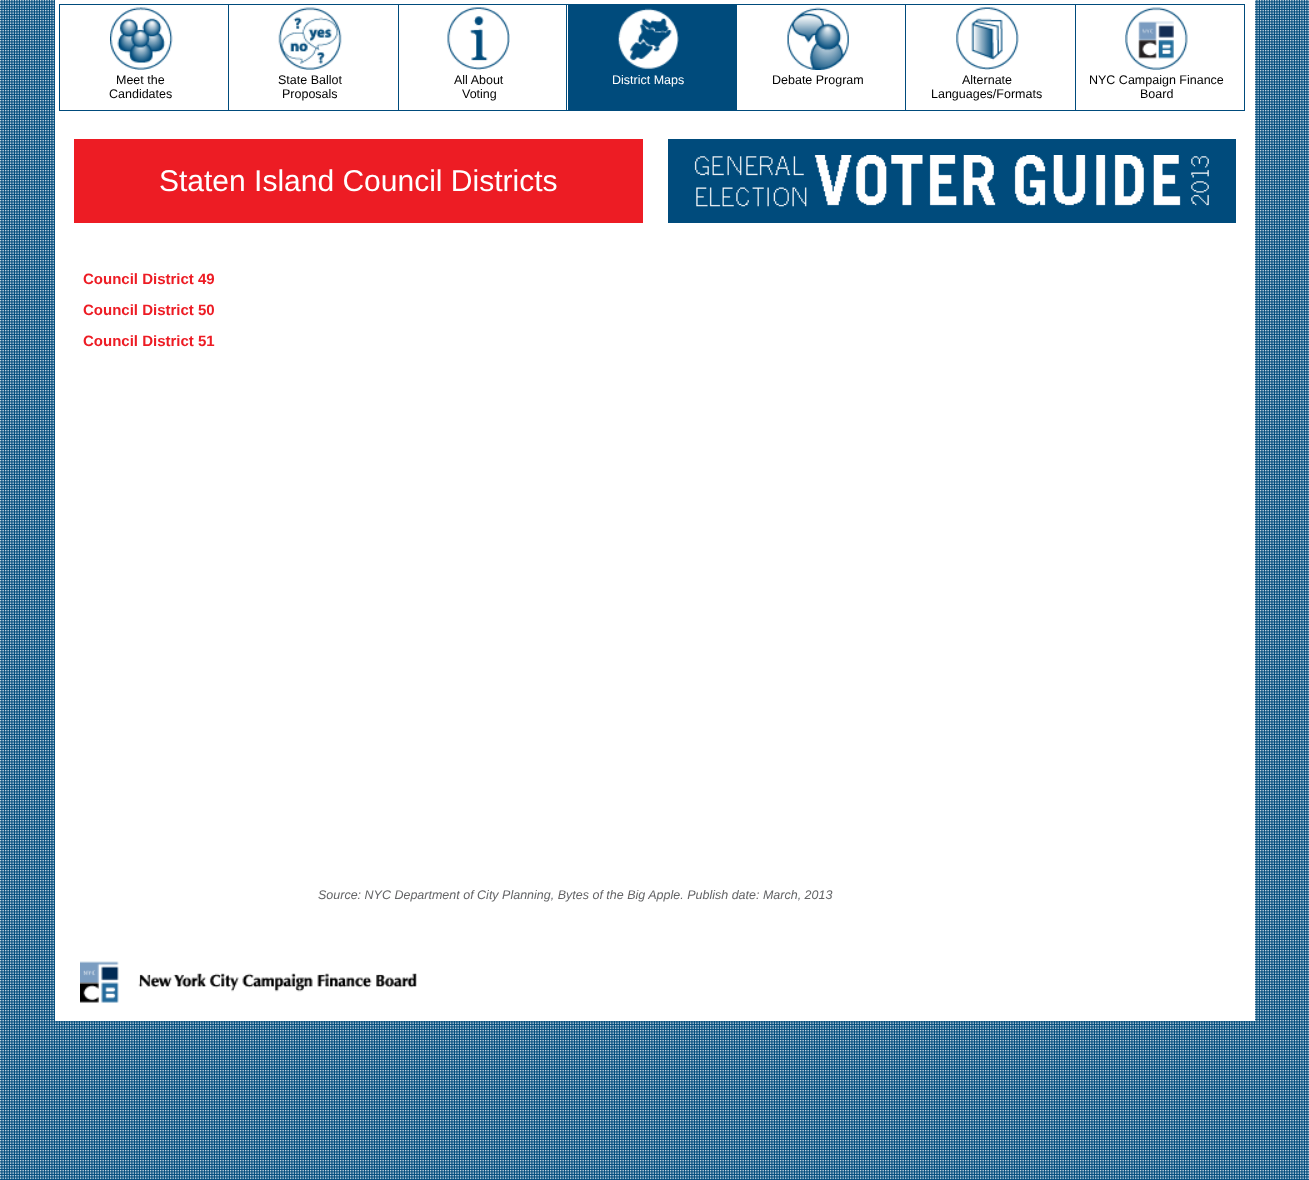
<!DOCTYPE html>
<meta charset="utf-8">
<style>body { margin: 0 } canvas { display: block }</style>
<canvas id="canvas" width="1309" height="1180"></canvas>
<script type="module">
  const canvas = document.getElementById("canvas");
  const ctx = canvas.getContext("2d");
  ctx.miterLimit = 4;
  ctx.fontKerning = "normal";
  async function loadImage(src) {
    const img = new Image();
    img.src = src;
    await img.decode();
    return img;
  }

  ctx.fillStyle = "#ffffff";
  ctx.fillRect(0, 0, 1309, 1180);
  ctx.drawImage(await loadImage("img1.png"), 0, 0, 1309, 1180);
  ctx.fillRect(55, 0, 1200, 1021);
  ctx.strokeStyle = "#004b7c";
  ctx.strokeRect(59.5, 4.5, 1185, 106);
  ctx.drawImage(await loadImage("img2.png"), 110, 7, 63, 63);
  ctx.font = "12.5px Liberation Sans";
  ctx.fillStyle = "#000000";
  ctx.fillText("Meet the", 116, 84);
  ctx.fillText("Candidates", 109, 98);
  ctx.fillStyle = "#004b7c";
  ctx.fillRect(228, 5, 1, 105);
  ctx.drawImage(await loadImage("img3.png"), 278, 7, 64, 63);
  ctx.fillStyle = "#000000";
  ctx.fillText("State Ballot", 278, 84);
  ctx.fillText("Proposals", 282, 98);
  ctx.fillStyle = "#004b7c";
  ctx.fillRect(398, 5, 1, 105);
  ctx.drawImage(await loadImage("img4.png"), 447, 7, 63, 63);
  ctx.fillStyle = "#000000";
  ctx.fillText("All About", 454, 84);
  ctx.fillText("Voting", 462, 98);
  ctx.fillStyle = "#004b7c";
  ctx.fillRect(566, 5, 1, 105);
  ctx.fillRect(568, 5, 169, 105);
  ctx.drawImage(await loadImage("img5.png"), 618, 8, 61, 61);
  ctx.fillStyle = "#ffffff";
  ctx.fillText("District Maps", 612, 84);
  ctx.drawImage(await loadImage("img6.png"), 787, 7, 62, 63);
  ctx.fillStyle = "#000000";
  ctx.fillText("Debate Program", 772, 84);
  ctx.fillStyle = "#004b7c";
  ctx.fillRect(905, 5, 1, 105);
  ctx.drawImage(await loadImage("img7.png"), 956, 7, 63, 63);
  ctx.fillStyle = "#000000";
  ctx.fillText("Alternate", 962, 84);
  ctx.fillText("Languages/Formats", 931, 98);
  ctx.fillStyle = "#004b7c";
  ctx.fillRect(1075, 5, 1, 105);
  ctx.drawImage(await loadImage("img8.png"), 1125, 7, 63, 63);
  ctx.fillStyle = "#000000";
  ctx.fillText("NYC Campaign Finance", 1089, 84);
  ctx.fillText("Board", 1140, 98);
  ctx.fillStyle = "#ed1c24";
  ctx.fillRect(74, 139, 569, 84);
  ctx.font = "30px Liberation Sans";
  ctx.fillStyle = "#ffffff";
  ctx.fillText("Staten Island Council Districts", 159, 191);
  ctx.fillStyle = "#004b7c";
  ctx.fillRect(668, 139, 568, 84);
  ctx.drawImage(await loadImage("img9.png"), 694, 155, 515, 52);
  ctx.font = "bold 15px Liberation Sans";
  ctx.fillStyle = "#ed1c24";
  ctx.fillText("Council District 49", 83, 284);
  ctx.fillText("Council District 50", 83, 315);
  ctx.fillText("Council District 51", 83, 346);
  ctx.font = "italic 12.5px Liberation Sans";
  ctx.fillStyle = "#636466";
  ctx.fillText("Source: NYC Department of City Planning, Bytes of the Big Apple. Publish date: March, 2013", 318, 899);
  ctx.drawImage(await loadImage("img10.png"), 80, 961, 337, 42);
</script>
